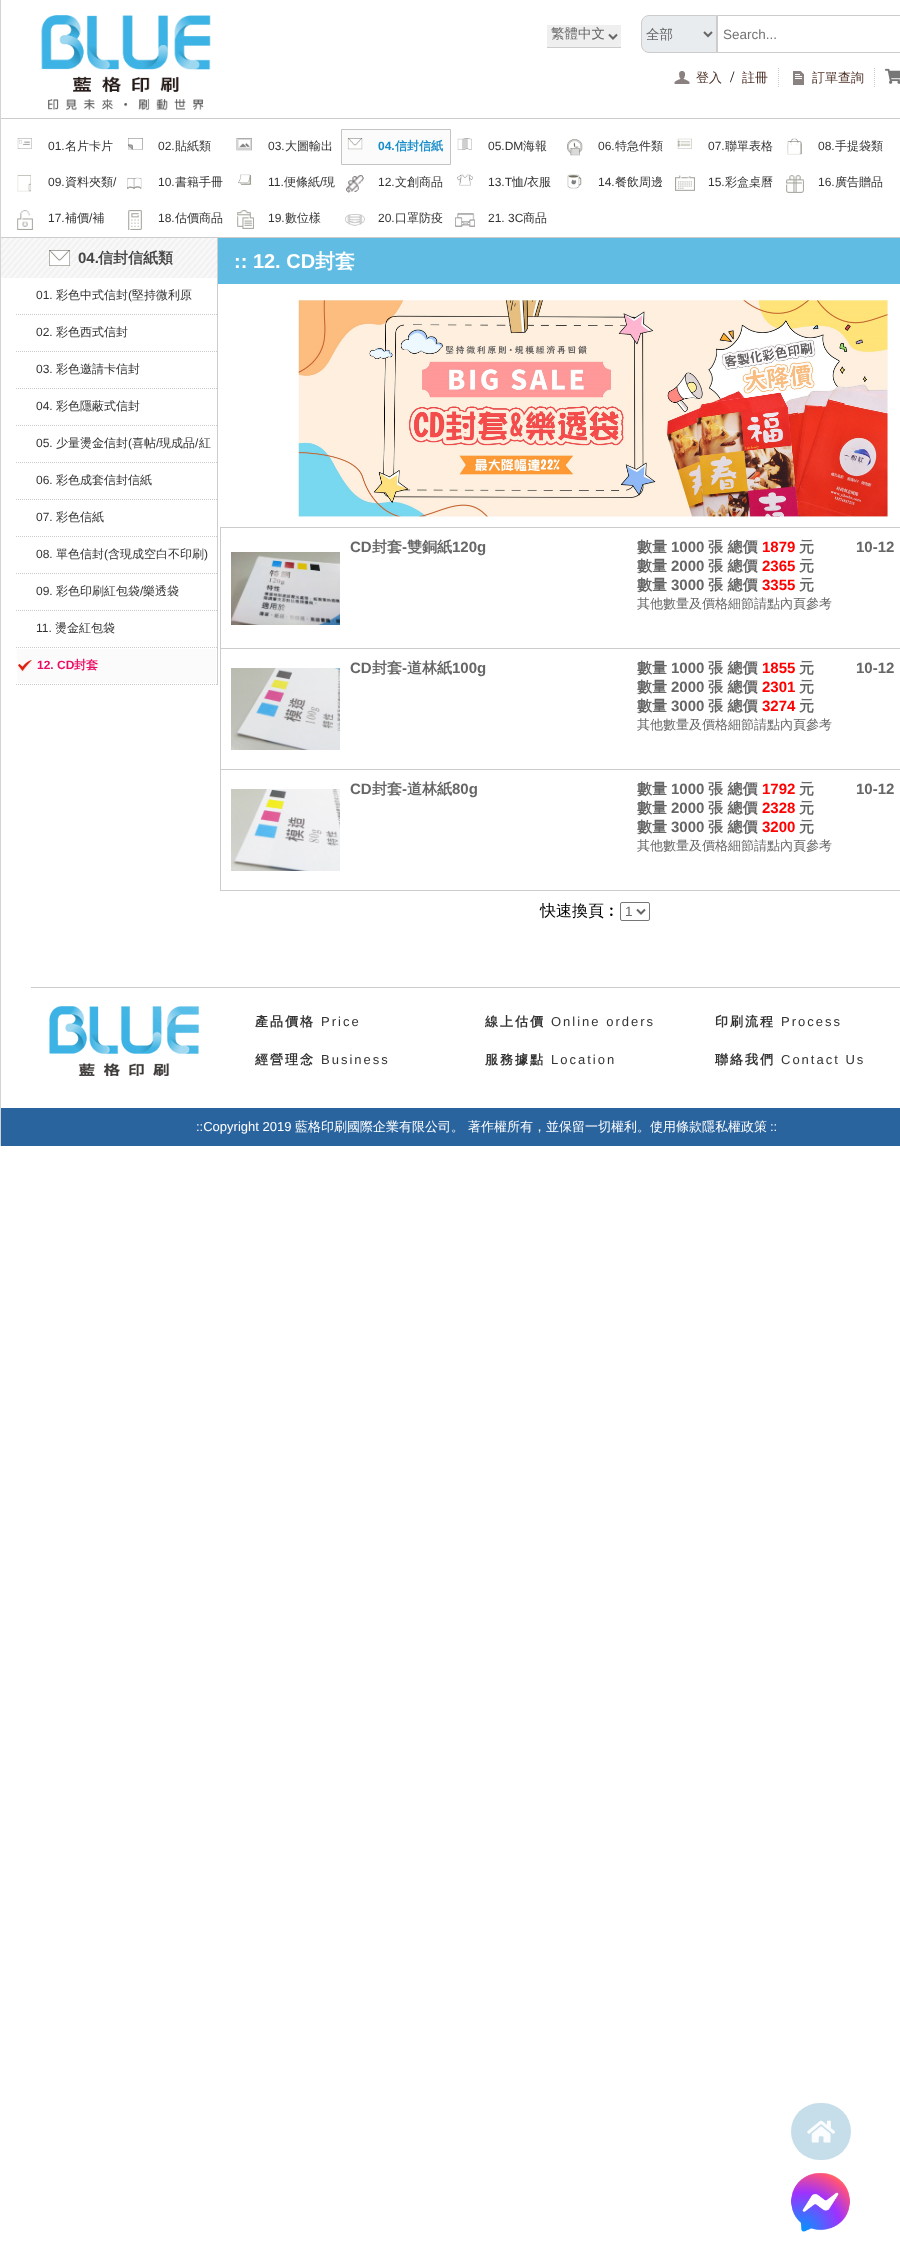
<!DOCTYPE html>
<meta charset="utf-8">
<style>body { margin: 0 } canvas { display: block }</style>
<canvas id="canvas" width="900" height="2246"></canvas>
<script type="module">
  const canvas = document.getElementById("canvas");
  const ctx = canvas.getContext("2d");
  ctx.miterLimit = 4;
  ctx.fontKerning = "normal";
  async function loadImage(src) {
    const img = new Image();
    img.src = src;
    await img.decode();
    return img;
  }

  ctx.fillStyle = "#ffffff";
  ctx.fillRect(0, 0, 900, 2246);
  ctx.fillStyle = "#d4d4d4";
  ctx.fillRect(0, 0, 1, 1146);
  ctx.drawImage(await loadImage("img1.png"), 41, 15, 170, 96);
  ctx.fillStyle = "#efefef";
  ctx.fillRect(547, 25, 74, 22);
  ctx.fillStyle = "#cccccc";
  ctx.fillRect(547, 47, 74, 1);
  ctx.beginPath();
  ctx.moveTo(609, 34.5);
  ctx.lineTo(613, 38.5);
  ctx.lineTo(617, 34.5);
  ctx.strokeStyle = "#666666";
  ctx.lineWidth = 2;
  ctx.stroke();
  ctx.font = "500 13.5px WenQuanYi Zen Hei";
  ctx.fillStyle = "#666666";
  ctx.fillText("繁體中文", 551, 38);
  ctx.fillStyle = "#e9ecef";
  ctx.beginPath();
  ctx.roundRect(641.5, 15.5, 75, 37, [7.5, 0, 0, 7.5]);
  ctx.fill();
  ctx.strokeStyle = "#cccccc";
  ctx.lineWidth = 1;
  ctx.stroke();
  ctx.beginPath();
  ctx.moveTo(704, 32);
  ctx.lineTo(708, 36);
  ctx.lineTo(712, 32);
  ctx.strokeStyle = "#666666";
  ctx.lineWidth = 2;
  ctx.stroke();
  ctx.fillStyle = "#666666";
  ctx.fillText("全部", 646, 39);
  ctx.strokeStyle = "#cccccc";
  ctx.lineWidth = 1;
  ctx.strokeRect(717.5, 15.5, 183, 37);
  ctx.font = "13.5px Liberation Sans";
  ctx.fillStyle = "#757575";
  ctx.fillText("Search...", 723, 39);
  ctx.beginPath();
  ctx.moveTo(778.5, 68);
  ctx.lineTo(778.5, 87);
  ctx.setLineDash([1, 1]);
  ctx.stroke();
  ctx.drawImage(await loadImage("img2.png"), 674, 71, 16, 13);
  ctx.font = "500 13px WenQuanYi Zen Hei";
  ctx.fillStyle = "#4d3126";
  ctx.fillText("登入", 696, 82);
  ctx.font = "16px Liberation Serif";
  ctx.fillStyle = "#000000";
  ctx.fillText("/", 730, 82);
  ctx.font = "500 13px WenQuanYi Zen Hei";
  ctx.fillStyle = "#4d3126";
  ctx.fillText("註冊", 742, 82);
  ctx.beginPath();
  ctx.moveTo(874.5, 68);
  ctx.lineTo(874.5, 87);
  ctx.stroke();
  ctx.drawImage(await loadImage("img3.png"), 793, 71, 11, 14);
  ctx.fillText("訂單查詢", 812, 82);
  ctx.drawImage(await loadImage("img4.png"), 885, 68, 15, 16);
  ctx.fillStyle = "#cccccc";
  ctx.fillRect(1, 118, 899, 1);
  ctx.drawImage(await loadImage("img5.png"), 17, 138, 15, 11);
  ctx.font = "12px Liberation Sans";
  ctx.fillStyle = "#333333";
  ctx.fillText("01.", 48, 150);
  ctx.font = "500 12px WenQuanYi Zen Hei";
  ctx.fillText("名片卡片", 65, 150);
  ctx.drawImage(await loadImage("img6.png"), 128, 138, 15, 12);
  ctx.font = "12px Liberation Sans";
  ctx.fillText("02.", 158, 150);
  ctx.font = "500 12px WenQuanYi Zen Hei";
  ctx.fillText("貼紙類", 175, 150);
  ctx.drawImage(await loadImage("img7.png"), 236, 138, 16, 13);
  ctx.font = "12px Liberation Sans";
  ctx.fillText("03.", 268, 150);
  ctx.font = "500 12px WenQuanYi Zen Hei";
  ctx.fillText("大圖輸出", 285, 150);
  ctx.fillStyle = "#fbfbfb";
  ctx.beginPath();
  ctx.rect(341.5, 129.5, 109, 35);
  ctx.fill();
  ctx.strokeStyle = "#c6c3c3";
  ctx.setLineDash([]);
  ctx.stroke();
  ctx.drawImage(await loadImage("img8.png"), 347, 138, 16, 12);
  ctx.font = "bold 12px Liberation Sans";
  ctx.fillStyle = "#168cc9";
  ctx.fillText("04.", 378, 150);
  ctx.font = "bold 12px WenQuanYi Zen Hei";
  ctx.fillText("信封信紙", 395, 150);
  ctx.drawImage(await loadImage("img9.png"), 457, 138, 15, 12);
  ctx.font = "12px Liberation Sans";
  ctx.fillStyle = "#333333";
  ctx.fillText("05.DM", 488, 150);
  ctx.font = "500 12px WenQuanYi Zen Hei";
  ctx.fillText("海報", 523, 150);
  ctx.drawImage(await loadImage("img10.png"), 567, 139, 16, 17);
  ctx.font = "12px Liberation Sans";
  ctx.fillText("06.", 598, 150);
  ctx.font = "500 12px WenQuanYi Zen Hei";
  ctx.fillText("特急件類", 615, 150);
  ctx.drawImage(await loadImage("img11.png"), 677, 138, 15, 11);
  ctx.font = "12px Liberation Sans";
  ctx.fillText("07.", 708, 150);
  ctx.font = "500 12px WenQuanYi Zen Hei";
  ctx.fillText("聯單表格", 725, 150);
  ctx.drawImage(await loadImage("img12.png"), 787, 138, 15, 17);
  ctx.font = "12px Liberation Sans";
  ctx.fillText("08.", 818, 150);
  ctx.font = "500 12px WenQuanYi Zen Hei";
  ctx.fillText("手提袋類", 835, 150);
  ctx.drawImage(await loadImage("img13.png"), 17, 175, 14, 17);
  ctx.font = "12px Liberation Sans";
  ctx.fillText("09.", 48, 186);
  ctx.font = "500 12px WenQuanYi Zen Hei";
  ctx.fillText("資料夾類", 65, 186);
  ctx.font = "12px Liberation Sans";
  ctx.fillText("/", 113, 186);
  ctx.drawImage(await loadImage("img14.png"), 127, 177, 15, 12);
  ctx.fillText("10.", 158, 186);
  ctx.font = "500 12px WenQuanYi Zen Hei";
  ctx.fillText("書籍手冊", 175, 186);
  ctx.drawImage(await loadImage("img15.png"), 238, 174, 14, 11);
  ctx.font = "12px Liberation Sans";
  ctx.fillText("11.", 268, 186);
  ctx.font = "500 12px WenQuanYi Zen Hei";
  ctx.fillText("便條紙", 284, 186);
  ctx.font = "12px Liberation Sans";
  ctx.fillText("/", 320, 186);
  ctx.font = "500 12px WenQuanYi Zen Hei";
  ctx.fillText("現", 323, 186);
  ctx.drawImage(await loadImage("img16.png"), 346, 175, 18, 18);
  ctx.font = "12px Liberation Sans";
  ctx.fillText("12.", 378, 186);
  ctx.font = "500 12px WenQuanYi Zen Hei";
  ctx.fillText("文創商品", 395, 186);
  ctx.drawImage(await loadImage("img17.png"), 456, 174, 17, 12);
  ctx.font = "12px Liberation Sans";
  ctx.fillText("13.T", 488, 186);
  ctx.font = "500 12px WenQuanYi Zen Hei";
  ctx.fillText("恤", 512, 186);
  ctx.font = "12px Liberation Sans";
  ctx.fillText("/", 524, 186);
  ctx.font = "500 12px WenQuanYi Zen Hei";
  ctx.fillText("衣服", 527, 186);
  ctx.drawImage(await loadImage("img18.png"), 567, 174, 15, 15);
  ctx.font = "12px Liberation Sans";
  ctx.fillText("14.", 598, 186);
  ctx.font = "500 12px WenQuanYi Zen Hei";
  ctx.fillText("餐飲周邊", 615, 186);
  ctx.drawImage(await loadImage("img19.png"), 675, 175, 20, 16);
  ctx.font = "12px Liberation Sans";
  ctx.fillText("15.", 708, 186);
  ctx.font = "500 12px WenQuanYi Zen Hei";
  ctx.fillText("彩盒桌曆", 725, 186);
  ctx.drawImage(await loadImage("img20.png"), 786, 175, 18, 18);
  ctx.font = "12px Liberation Sans";
  ctx.fillText("16.", 818, 186);
  ctx.font = "500 12px WenQuanYi Zen Hei";
  ctx.fillText("廣告贈品", 835, 186);
  ctx.drawImage(await loadImage("img21.png"), 17, 210, 16, 20);
  ctx.font = "12px Liberation Sans";
  ctx.fillText("17.", 48, 222);
  ctx.font = "500 12px WenQuanYi Zen Hei";
  ctx.fillText("補價 補", 65, 222);
  ctx.font = "12px Liberation Sans";
  ctx.fillText("/", 89, 222);
  ctx.drawImage(await loadImage("img22.png"), 128, 210, 14, 20);
  ctx.fillText("18.", 158, 222);
  ctx.font = "500 12px WenQuanYi Zen Hei";
  ctx.fillText("估價商品", 175, 222);
  ctx.drawImage(await loadImage("img23.png"), 237, 210, 17, 19);
  ctx.font = "12px Liberation Sans";
  ctx.fillText("19.", 268, 222);
  ctx.font = "500 12px WenQuanYi Zen Hei";
  ctx.fillText("數位樣", 285, 222);
  ctx.drawImage(await loadImage("img24.png"), 345, 214, 20, 12);
  ctx.font = "12px Liberation Sans";
  ctx.fillText("20.", 378, 222);
  ctx.font = "500 12px WenQuanYi Zen Hei";
  ctx.fillText("口罩防疫", 395, 222);
  ctx.drawImage(await loadImage("img25.png"), 455, 213, 20, 14);
  ctx.font = "12px Liberation Sans";
  ctx.fillText("21. 3C", 488, 222);
  ctx.font = "500 12px WenQuanYi Zen Hei";
  ctx.fillText("商品", 523, 222);
  ctx.fillStyle = "#cccccc";
  ctx.fillRect(1, 237, 899, 1);
  ctx.fillRect(217, 238, 1, 447);
  ctx.drawImage(await loadImage("img26.png"), 1, 238, 216, 40);
  ctx.drawImage(await loadImage("img27.png"), 49, 250, 21, 16);
  ctx.font = "bold 15px Liberation Sans";
  ctx.fillStyle = "#464646";
  ctx.fillText("04.", 78, 263);
  ctx.font = "bold 15px WenQuanYi Zen Hei";
  ctx.fillText("信封信紙類", 98, 263);
  ctx.beginPath();
  ctx.moveTo(16, 314.5);
  ctx.lineTo(217, 314.5);
  ctx.strokeStyle = "#cccccc";
  ctx.setLineDash([1, 1]);
  ctx.stroke();
  ctx.font = "12px Liberation Sans";
  ctx.fillStyle = "#333333";
  ctx.fillText("01.", 36, 299);
  ctx.font = "500 12px WenQuanYi Zen Hei";
  ctx.fillText("彩色中式信封", 56, 299);
  ctx.font = "12px Liberation Sans";
  ctx.fillText("(", 128, 299);
  ctx.font = "500 12px WenQuanYi Zen Hei";
  ctx.fillText("堅持微利原", 132, 299);
  ctx.beginPath();
  ctx.moveTo(16, 351.5);
  ctx.lineTo(217, 351.5);
  ctx.stroke();
  ctx.font = "12px Liberation Sans";
  ctx.fillText("02.", 36, 336);
  ctx.font = "500 12px WenQuanYi Zen Hei";
  ctx.fillText("彩色西式信封", 56, 336);
  ctx.beginPath();
  ctx.moveTo(16, 388.5);
  ctx.lineTo(217, 388.5);
  ctx.stroke();
  ctx.font = "12px Liberation Sans";
  ctx.fillText("03.", 36, 373);
  ctx.font = "500 12px WenQuanYi Zen Hei";
  ctx.fillText("彩色邀請卡信封", 56, 373);
  ctx.beginPath();
  ctx.moveTo(16, 425.5);
  ctx.lineTo(217, 425.5);
  ctx.stroke();
  ctx.font = "12px Liberation Sans";
  ctx.fillText("04.", 36, 410);
  ctx.font = "500 12px WenQuanYi Zen Hei";
  ctx.fillText("彩色隱蔽式信封", 56, 410);
  ctx.beginPath();
  ctx.moveTo(16, 462.5);
  ctx.lineTo(217, 462.5);
  ctx.stroke();
  ctx.font = "12px Liberation Sans";
  ctx.fillText("05.", 36, 447);
  ctx.font = "500 12px WenQuanYi Zen Hei";
  ctx.fillText("少量燙金信封", 56, 447);
  ctx.font = "12px Liberation Sans";
  ctx.fillText("(", 128, 447);
  ctx.font = "500 12px WenQuanYi Zen Hei";
  ctx.fillText("喜帖", 132, 447);
  ctx.font = "12px Liberation Sans";
  ctx.fillText("/", 156, 447);
  ctx.font = "500 12px WenQuanYi Zen Hei";
  ctx.fillText("現成品", 159, 447);
  ctx.font = "12px Liberation Sans";
  ctx.fillText("/", 195, 447);
  ctx.font = "500 12px WenQuanYi Zen Hei";
  ctx.fillText("紅", 199, 447);
  ctx.beginPath();
  ctx.moveTo(16, 499.5);
  ctx.lineTo(217, 499.5);
  ctx.stroke();
  ctx.font = "12px Liberation Sans";
  ctx.fillText("06.", 36, 484);
  ctx.font = "500 12px WenQuanYi Zen Hei";
  ctx.fillText("彩色成套信封信紙", 56, 484);
  ctx.beginPath();
  ctx.moveTo(16, 536.5);
  ctx.lineTo(217, 536.5);
  ctx.stroke();
  ctx.font = "12px Liberation Sans";
  ctx.fillText("07.", 36, 521);
  ctx.font = "500 12px WenQuanYi Zen Hei";
  ctx.fillText("彩色信紙", 56, 521);
  ctx.beginPath();
  ctx.moveTo(16, 573.5);
  ctx.lineTo(217, 573.5);
  ctx.stroke();
  ctx.font = "12px Liberation Sans";
  ctx.fillText("08.", 36, 558);
  ctx.font = "500 12px WenQuanYi Zen Hei";
  ctx.fillText("單色信封", 56, 558);
  ctx.font = "12px Liberation Sans";
  ctx.fillText("(", 104, 558);
  ctx.font = "500 12px WenQuanYi Zen Hei";
  ctx.fillText("含現成空白不印刷", 108, 558);
  ctx.font = "12px Liberation Sans";
  ctx.fillText(")", 204, 558);
  ctx.beginPath();
  ctx.moveTo(16, 610.5);
  ctx.lineTo(217, 610.5);
  ctx.stroke();
  ctx.fillText("09.", 36, 595);
  ctx.font = "500 12px WenQuanYi Zen Hei";
  ctx.fillText("彩色印刷紅包袋", 56, 595);
  ctx.font = "12px Liberation Sans";
  ctx.fillText("/", 140, 595);
  ctx.font = "500 12px WenQuanYi Zen Hei";
  ctx.fillText("樂透袋", 143, 595);
  ctx.beginPath();
  ctx.moveTo(16, 647.5);
  ctx.lineTo(217, 647.5);
  ctx.stroke();
  ctx.font = "12px Liberation Sans";
  ctx.fillText("11.", 36, 632);
  ctx.font = "500 12px WenQuanYi Zen Hei";
  ctx.fillText("燙金紅包袋", 55, 632);
  ctx.beginPath();
  ctx.moveTo(16, 684.5);
  ctx.lineTo(217, 684.5);
  ctx.stroke();
  ctx.fillStyle = "#fbfbfb";
  ctx.fillRect(17, 649, 199, 34);
  ctx.drawImage(await loadImage("img28.png"), 18, 660, 14, 12);
  ctx.font = "bold 12px Liberation Sans";
  ctx.fillStyle = "#eb0c65";
  ctx.fillText("12. CD", 37, 669);
  ctx.font = "bold 12px WenQuanYi Zen Hei";
  ctx.fillText("封套", 74, 669);
  ctx.fillStyle = "#60bce3";
  ctx.fillRect(218, 238, 682, 46);
  ctx.font = "bold 20px Liberation Sans";
  ctx.fillStyle = "#ffffff";
  ctx.fillText(":: 12. CD", 234, 268);
  ctx.font = "bold 20px WenQuanYi Zen Hei";
  ctx.fillText("封套", 315, 268);
  ctx.drawImage(await loadImage("img29.png"), 297, 299, 593, 219);
  ctx.setLineDash([]);
  ctx.strokeRect(220.5, 527.5, 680, 121);
  ctx.font = "bold 15px Liberation Sans";
  ctx.fillStyle = "#666666";
  ctx.fillText("CD", 350, 552);
  ctx.font = "bold 15px WenQuanYi Zen Hei";
  ctx.fillText("封套", 372, 552);
  ctx.font = "bold 15px Liberation Sans";
  ctx.fillText("-", 402, 552);
  ctx.font = "bold 15px WenQuanYi Zen Hei";
  ctx.fillText("雙銅紙", 407, 552);
  ctx.font = "bold 15px Liberation Sans";
  ctx.fillText("120g", 452, 552);
  ctx.font = "bold 15px WenQuanYi Zen Hei";
  ctx.fillText("數量", 637, 552);
  ctx.font = "bold 15px Liberation Sans";
  ctx.fillText("1000", 671, 552);
  ctx.font = "bold 15px WenQuanYi Zen Hei";
  ctx.fillText("張 總價", 708, 552);
  ctx.font = "bold 15px Liberation Sans";
  ctx.fillStyle = "#ff0000";
  ctx.fillText("1879", 762, 552);
  ctx.font = "bold 15px WenQuanYi Zen Hei";
  ctx.fillStyle = "#666666";
  ctx.fillText("元", 799, 552);
  ctx.fillText("數量", 637, 571);
  ctx.font = "bold 15px Liberation Sans";
  ctx.fillText("2000", 671, 571);
  ctx.font = "bold 15px WenQuanYi Zen Hei";
  ctx.fillText("張 總價", 708, 571);
  ctx.font = "bold 15px Liberation Sans";
  ctx.fillStyle = "#ff0000";
  ctx.fillText("2365", 762, 571);
  ctx.font = "bold 15px WenQuanYi Zen Hei";
  ctx.fillStyle = "#666666";
  ctx.fillText("元", 799, 571);
  ctx.fillText("數量", 637, 590);
  ctx.font = "bold 15px Liberation Sans";
  ctx.fillText("3000", 671, 590);
  ctx.font = "bold 15px WenQuanYi Zen Hei";
  ctx.fillText("張 總價", 708, 590);
  ctx.font = "bold 15px Liberation Sans";
  ctx.fillStyle = "#ff0000";
  ctx.fillText("3355", 762, 590);
  ctx.font = "bold 15px WenQuanYi Zen Hei";
  ctx.fillStyle = "#666666";
  ctx.fillText("元", 799, 590);
  ctx.font = "500 13px WenQuanYi Zen Hei";
  ctx.fillText("其他數量及價格細節請點內頁參考", 637, 608);
  ctx.font = "bold 15px Liberation Sans";
  ctx.fillText("10-12", 856, 552);
  ctx.drawImage(await loadImage("img30.png"), 231, 552, 109, 73);
  ctx.fillStyle = "#cccccc";
  ctx.fillRect(220, 769, 680, 1);
  ctx.fillRect(220, 649, 1, 121);
  ctx.drawImage(await loadImage("img31.png"), 231, 668, 109, 82);
  ctx.fillStyle = "#666666";
  ctx.fillText("CD", 350, 673);
  ctx.font = "bold 15px WenQuanYi Zen Hei";
  ctx.fillText("封套", 372, 673);
  ctx.font = "bold 15px Liberation Sans";
  ctx.fillText("-", 402, 673);
  ctx.font = "bold 15px WenQuanYi Zen Hei";
  ctx.fillText("道林紙", 407, 673);
  ctx.font = "bold 15px Liberation Sans";
  ctx.fillText("100g", 452, 673);
  ctx.font = "bold 15px WenQuanYi Zen Hei";
  ctx.fillText("數量", 637, 673);
  ctx.font = "bold 15px Liberation Sans";
  ctx.fillText("1000", 671, 673);
  ctx.font = "bold 15px WenQuanYi Zen Hei";
  ctx.fillText("張 總價", 708, 673);
  ctx.font = "bold 15px Liberation Sans";
  ctx.fillStyle = "#ff0000";
  ctx.fillText("1855", 762, 673);
  ctx.font = "bold 15px WenQuanYi Zen Hei";
  ctx.fillStyle = "#666666";
  ctx.fillText("元", 799, 673);
  ctx.fillText("數量", 637, 692);
  ctx.font = "bold 15px Liberation Sans";
  ctx.fillText("2000", 671, 692);
  ctx.font = "bold 15px WenQuanYi Zen Hei";
  ctx.fillText("張 總價", 708, 692);
  ctx.font = "bold 15px Liberation Sans";
  ctx.fillStyle = "#ff0000";
  ctx.fillText("2301", 762, 692);
  ctx.font = "bold 15px WenQuanYi Zen Hei";
  ctx.fillStyle = "#666666";
  ctx.fillText("元", 799, 692);
  ctx.fillText("數量", 637, 711);
  ctx.font = "bold 15px Liberation Sans";
  ctx.fillText("3000", 671, 711);
  ctx.font = "bold 15px WenQuanYi Zen Hei";
  ctx.fillText("張 總價", 708, 711);
  ctx.font = "bold 15px Liberation Sans";
  ctx.fillStyle = "#ff0000";
  ctx.fillText("3274", 762, 711);
  ctx.font = "bold 15px WenQuanYi Zen Hei";
  ctx.fillStyle = "#666666";
  ctx.fillText("元", 799, 711);
  ctx.font = "500 13px WenQuanYi Zen Hei";
  ctx.fillText("其他數量及價格細節請點內頁參考", 637, 729);
  ctx.font = "bold 15px Liberation Sans";
  ctx.fillText("10-12", 856, 673);
  ctx.fillStyle = "#cccccc";
  ctx.fillRect(220, 890, 680, 1);
  ctx.fillRect(220, 770, 1, 121);
  ctx.drawImage(await loadImage("img32.png"), 231, 789, 109, 82);
  ctx.fillStyle = "#666666";
  ctx.fillText("CD", 350, 794);
  ctx.font = "bold 15px WenQuanYi Zen Hei";
  ctx.fillText("封套", 372, 794);
  ctx.font = "bold 15px Liberation Sans";
  ctx.fillText("-", 402, 794);
  ctx.font = "bold 15px WenQuanYi Zen Hei";
  ctx.fillText("道林紙", 407, 794);
  ctx.font = "bold 15px Liberation Sans";
  ctx.fillText("80g", 452, 794);
  ctx.font = "bold 15px WenQuanYi Zen Hei";
  ctx.fillText("數量", 637, 794);
  ctx.font = "bold 15px Liberation Sans";
  ctx.fillText("1000", 671, 794);
  ctx.font = "bold 15px WenQuanYi Zen Hei";
  ctx.fillText("張 總價", 708, 794);
  ctx.font = "bold 15px Liberation Sans";
  ctx.fillStyle = "#ff0000";
  ctx.fillText("1792", 762, 794);
  ctx.font = "bold 15px WenQuanYi Zen Hei";
  ctx.fillStyle = "#666666";
  ctx.fillText("元", 799, 794);
  ctx.fillText("數量", 637, 813);
  ctx.font = "bold 15px Liberation Sans";
  ctx.fillText("2000", 671, 813);
  ctx.font = "bold 15px WenQuanYi Zen Hei";
  ctx.fillText("張 總價", 708, 813);
  ctx.font = "bold 15px Liberation Sans";
  ctx.fillStyle = "#ff0000";
  ctx.fillText("2328", 762, 813);
  ctx.font = "bold 15px WenQuanYi Zen Hei";
  ctx.fillStyle = "#666666";
  ctx.fillText("元", 799, 813);
  ctx.fillText("數量", 637, 832);
  ctx.font = "bold 15px Liberation Sans";
  ctx.fillText("3000", 671, 832);
  ctx.font = "bold 15px WenQuanYi Zen Hei";
  ctx.fillText("張 總價", 708, 832);
  ctx.font = "bold 15px Liberation Sans";
  ctx.fillStyle = "#ff0000";
  ctx.fillText("3200", 762, 832);
  ctx.font = "bold 15px WenQuanYi Zen Hei";
  ctx.fillStyle = "#666666";
  ctx.fillText("元", 799, 832);
  ctx.font = "500 13px WenQuanYi Zen Hei";
  ctx.fillText("其他數量及價格細節請點內頁參考", 637, 850);
  ctx.font = "bold 15px Liberation Sans";
  ctx.fillText("10-12", 856, 794);
  ctx.font = "500 16px WenQuanYi Zen Hei";
  ctx.fillStyle = "#000000";
  ctx.fillText("快速換頁︰", 540, 916);
  ctx.beginPath();
  ctx.roundRect(620.5, 902.5, 29, 18, 1.5);
  ctx.strokeStyle = "#767676";
  ctx.stroke();
  ctx.beginPath();
  ctx.moveTo(637, 909.5);
  ctx.lineTo(641, 913.5);
  ctx.lineTo(645, 909.5);
  ctx.strokeStyle = "#666666";
  ctx.lineWidth = 2;
  ctx.stroke();
  ctx.font = "13.5px Liberation Sans";
  ctx.fillStyle = "#666666";
  ctx.fillText("1", 625, 916);
  ctx.fillStyle = "#cccccc";
  ctx.fillRect(31, 987, 869, 1);
  ctx.drawImage(await loadImage("img33.png"), 49, 1006, 150, 70);
  ctx.letterSpacing = "2px";
  ctx.font = "bold 13px WenQuanYi Zen Hei";
  ctx.fillStyle = "#333333";
  ctx.fillText("產品價格", 255, 1026);
  ctx.font = "13px Liberation Sans";
  ctx.fillText("Price", 321, 1026);
  ctx.font = "bold 13px WenQuanYi Zen Hei";
  ctx.fillText("線上估價", 485, 1026);
  ctx.font = "13px Liberation Sans";
  ctx.fillText("Online orders", 551, 1026);
  ctx.font = "bold 13px WenQuanYi Zen Hei";
  ctx.fillText("印刷流程", 715, 1026);
  ctx.font = "13px Liberation Sans";
  ctx.fillText("Process", 781, 1026);
  ctx.font = "bold 13px WenQuanYi Zen Hei";
  ctx.fillText("經營理念", 255, 1064);
  ctx.font = "13px Liberation Sans";
  ctx.fillText("Business", 321, 1064);
  ctx.font = "bold 13px WenQuanYi Zen Hei";
  ctx.fillText("服務據點", 485, 1064);
  ctx.font = "13px Liberation Sans";
  ctx.fillText("Location", 551, 1064);
  ctx.font = "bold 13px WenQuanYi Zen Hei";
  ctx.fillText("聯絡我們", 715, 1064);
  ctx.font = "13px Liberation Sans";
  ctx.fillText("Contact Us", 781, 1064);
  ctx.fillStyle = "#29649f";
  ctx.fillRect(1, 1108, 899, 38);
  ctx.letterSpacing = "0px";
  ctx.fillStyle = "#ffffff";
  ctx.fillText("::Copyright 2019", 196, 1131);
  ctx.font = "500 13px WenQuanYi Zen Hei";
  ctx.fillText("藍格印刷國際企業有限公司。 著作權所有，並保留一切權利。使用條款隱私權政策", 295, 1131);
  ctx.font = "13px Liberation Sans";
  ctx.fillText("::", 770, 1131);
  ctx.fillStyle = "#c6deea";
  ctx.beginPath();
  ctx.roundRect(791, 2103, 60, 57, 28.5);
  ctx.fill();
  ctx.drawImage(await loadImage("img34.png"), 807, 2120, 28, 23);
  ctx.drawImage(await loadImage("img35.png"), 791, 2173, 59, 59);
</script>
